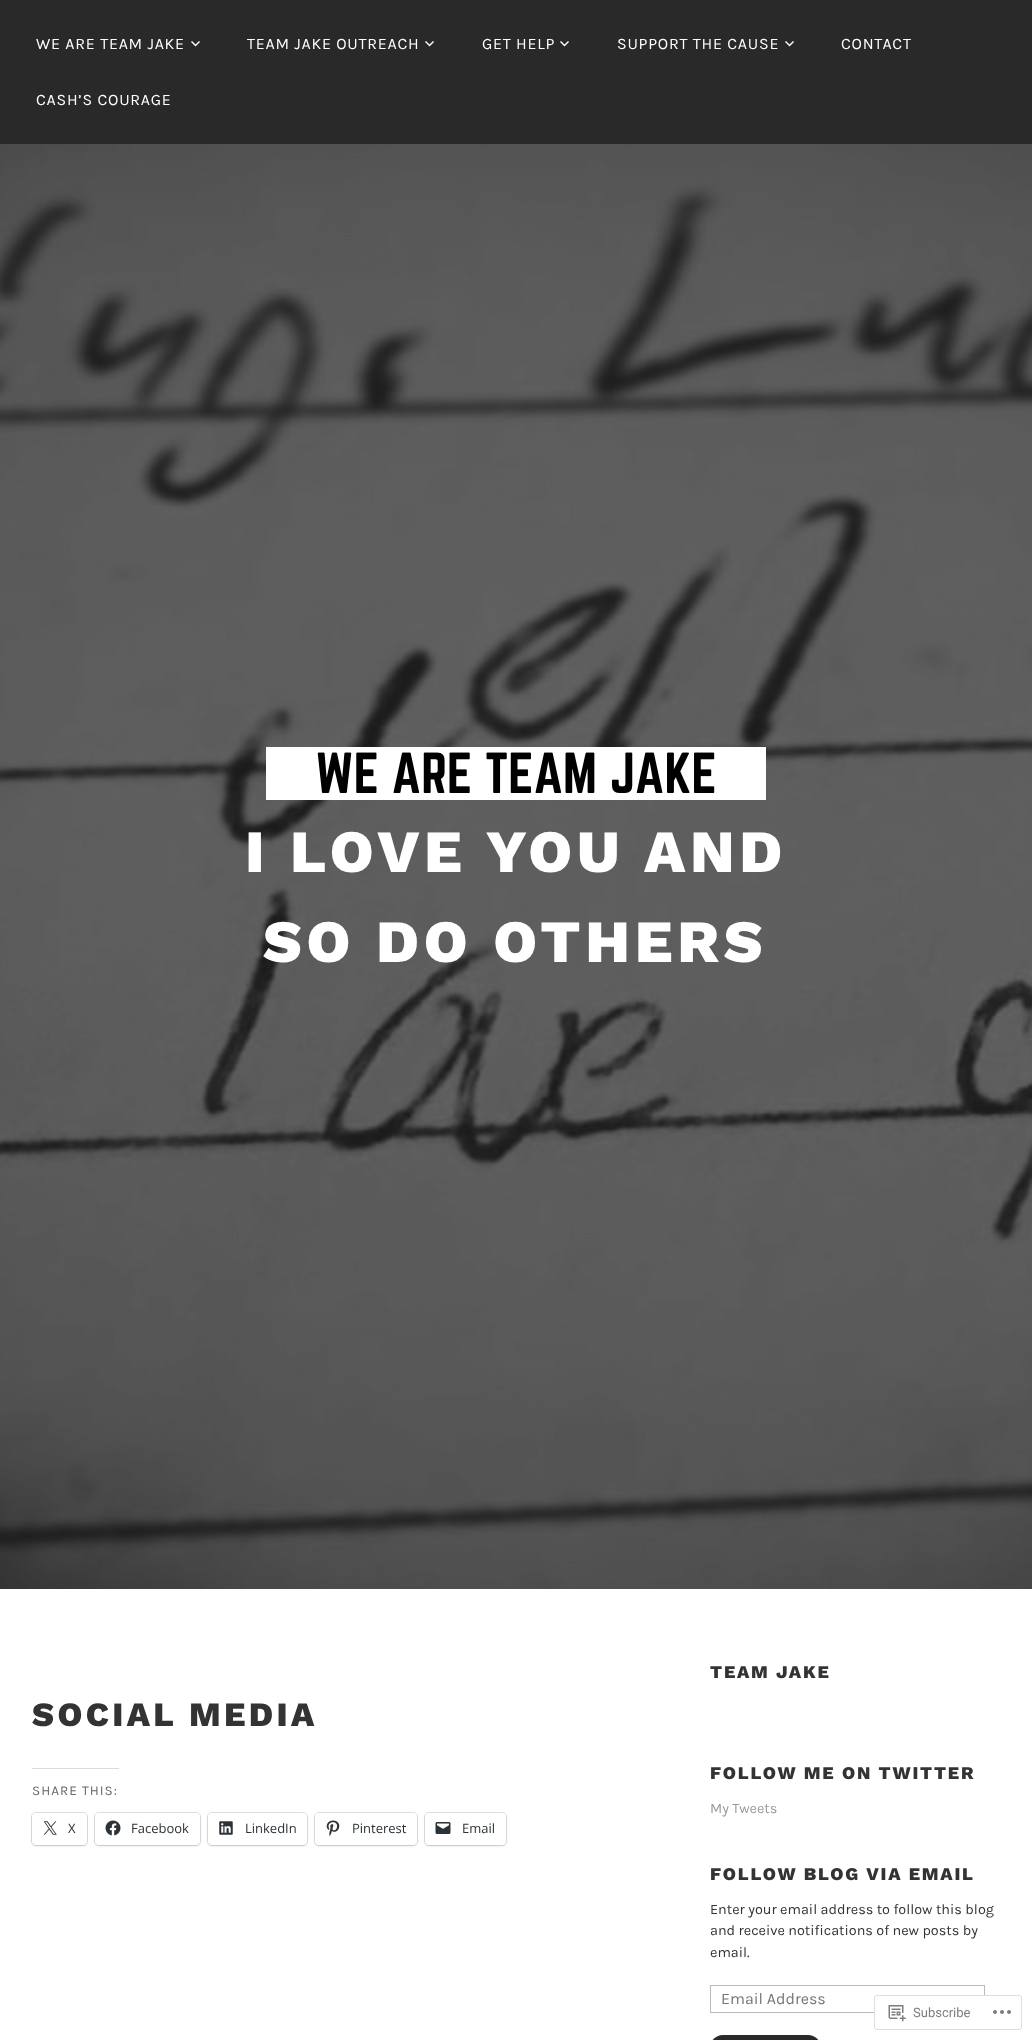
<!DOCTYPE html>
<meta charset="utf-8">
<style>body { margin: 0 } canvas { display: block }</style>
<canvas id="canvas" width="1032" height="2040"></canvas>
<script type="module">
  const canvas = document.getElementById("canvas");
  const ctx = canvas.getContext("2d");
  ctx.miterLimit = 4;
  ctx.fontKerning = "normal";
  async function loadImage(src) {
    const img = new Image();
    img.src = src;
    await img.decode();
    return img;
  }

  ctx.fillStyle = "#ffffff";
  ctx.fillRect(0, 0, 1032, 2040);
  ctx.fillStyle = "#29292a";
  ctx.fillRect(0, 0, 1032, 144);
  ctx.letterSpacing = "0.75px";
  ctx.font = "16px Karla";
  ctx.fillStyle = "#ffffff";
  ctx.fillText("WE ARE TEAM JAKE", 36, 49);
  ctx.drawImage(await loadImage("img1.png"), 191, 41, 9, 6);
  ctx.fillText("TEAM JAKE OUTREACH", 247, 49);
  ctx.drawImage(await loadImage("img1.png"), 425, 41, 9, 6);
  ctx.fillText("GET HELP", 482, 49);
  ctx.drawImage(await loadImage("img1.png"), 560, 41, 9, 6);
  ctx.fillText("SUPPORT THE CAUSE", 617, 49);
  ctx.drawImage(await loadImage("img1.png"), 785, 41, 9, 6);
  ctx.fillText("CONTACT", 841, 49);
  ctx.fillText("CASH’S COURAGE", 36, 105);
  ctx.drawImage(await loadImage("img2.png"), 0, 144, 1032, 1445);
  ctx.drawImage(await loadImage("img3.png"), 266, 747, 500, 53);
  ctx.letterSpacing = "4.75px";
  ctx.font = "800 60px Work Sans";
  ctx.fillText("I LOVE YOU AND", 245, 872);
  ctx.fillText("SO DO OTHERS", 263, 962);
  ctx.letterSpacing = "3.4px";
  ctx.font = "800 34px Work Sans";
  ctx.fillStyle = "#333333";
  ctx.fillText("SOCIAL MEDIA", 32, 1726);
  ctx.fillStyle = "#dcdcde";
  ctx.fillRect(32, 1768, 87, 1);
  ctx.letterSpacing = "1px";
  ctx.font = "13.5px Karla";
  ctx.fillStyle = "#666666";
  ctx.fillText("SHARE THIS:", 32, 1795);
  ctx.beginPath();
  ctx.roundRect(31.5, 1812.5, 56, 33, 4.5);
  ctx.strokeStyle = "#e0e0e0";
  ctx.stroke();
  ctx.fillStyle = "rgba(0, 0, 0, 0.12)";
  ctx.filter = "blur(1px)";
  ctx.beginPath();
  ctx.roundRect(32, 1814, 55, 32, 4);
  ctx.fill();
  ctx.filter = "none";
  ctx.fillStyle = "#ffffff";
  ctx.beginPath();
  ctx.roundRect(32, 1813, 55, 32, 4);
  ctx.fill();
  ctx.drawImage(await loadImage("img4.png"), 43, 1821, 14, 14);
  ctx.letterSpacing = "0px";
  ctx.font = "13px Open Sans";
  ctx.fillStyle = "#2c3338";
  ctx.fillText("X", 68, 1833);
  ctx.beginPath();
  ctx.roundRect(94.5, 1812.5, 106, 33, 4.5);
  ctx.stroke();
  ctx.fillStyle = "rgba(0, 0, 0, 0.12)";
  ctx.filter = "blur(1px)";
  ctx.beginPath();
  ctx.roundRect(95, 1814, 105, 32, 4);
  ctx.fill();
  ctx.filter = "none";
  ctx.fillStyle = "#ffffff";
  ctx.beginPath();
  ctx.roundRect(95, 1813, 105, 32, 4);
  ctx.fill();
  ctx.drawImage(await loadImage("img5.png"), 105, 1820, 16, 16);
  ctx.fillStyle = "#2c3338";
  ctx.fillText("Facebook", 131, 1833);
  ctx.beginPath();
  ctx.roundRect(207.5, 1812.5, 100, 33, 4.5);
  ctx.stroke();
  ctx.fillStyle = "rgba(0, 0, 0, 0.12)";
  ctx.filter = "blur(1px)";
  ctx.beginPath();
  ctx.roundRect(208, 1814, 99, 32, 4);
  ctx.fill();
  ctx.filter = "none";
  ctx.fillStyle = "#ffffff";
  ctx.beginPath();
  ctx.roundRect(208, 1813, 99, 32, 4);
  ctx.fill();
  ctx.drawImage(await loadImage("img6.png"), 219, 1821, 14, 14);
  ctx.fillStyle = "#2c3338";
  ctx.fillText("LinkedIn", 245, 1833);
  ctx.beginPath();
  ctx.roundRect(314.5, 1812.5, 103, 33, 4.5);
  ctx.stroke();
  ctx.fillStyle = "rgba(0, 0, 0, 0.12)";
  ctx.filter = "blur(1px)";
  ctx.beginPath();
  ctx.roundRect(315, 1814, 102, 32, 4);
  ctx.fill();
  ctx.filter = "none";
  ctx.fillStyle = "#ffffff";
  ctx.beginPath();
  ctx.roundRect(315, 1813, 102, 32, 4);
  ctx.fill();
  ctx.drawImage(await loadImage("img7.png"), 326, 1820, 14, 16);
  ctx.fillStyle = "#2c3338";
  ctx.fillText("Pinterest", 352, 1833);
  ctx.beginPath();
  ctx.roundRect(424.5, 1812.5, 82, 33, 4.5);
  ctx.stroke();
  ctx.fillStyle = "rgba(0, 0, 0, 0.12)";
  ctx.filter = "blur(1px)";
  ctx.beginPath();
  ctx.roundRect(425, 1814, 81, 32, 4);
  ctx.fill();
  ctx.filter = "none";
  ctx.fillStyle = "#ffffff";
  ctx.beginPath();
  ctx.roundRect(425, 1813, 81, 32, 4);
  ctx.fill();
  ctx.drawImage(await loadImage("img8.png"), 435, 1822, 16, 12);
  ctx.fillStyle = "#2c3338";
  ctx.fillText("Email", 462, 1833);
  ctx.letterSpacing = "1.8px";
  ctx.font = "800 18px Work Sans";
  ctx.fillStyle = "#333333";
  ctx.fillText("TEAM JAKE", 710, 1678);
  ctx.fillText("FOLLOW ME ON TWITTER", 710, 1779);
  ctx.letterSpacing = "0px";
  ctx.font = "14.4px Karla";
  ctx.fillStyle = "#999999";
  ctx.fillText("My Tweets", 710, 1813);
  ctx.letterSpacing = "1.8px";
  ctx.font = "800 18px Work Sans";
  ctx.fillStyle = "#333333";
  ctx.fillText("FOLLOW BLOG VIA EMAIL", 710, 1880);
  ctx.letterSpacing = "0px";
  ctx.font = "14.4px Karla";
  ctx.fillText("Enter your email address to follow this blog", 710, 1914);
  ctx.fillText("and receive notifications of new posts by", 710, 1935);
  ctx.fillText("email.", 710, 1957);
  ctx.strokeStyle = "#bbbbbb";
  ctx.strokeRect(710.5, 1985.5, 274, 27);
  ctx.font = "16px Karla";
  ctx.fillStyle = "#757575";
  ctx.fillText("Email Address", 721, 2004);
  ctx.fillStyle = "#29292a";
  ctx.beginPath();
  ctx.roundRect(710, 2035, 111, 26, 20.5);
  ctx.fill();
  ctx.fillStyle = "rgba(255, 255, 255, 0.98)";
  ctx.beginPath();
  ctx.roundRect(874.5, 1995.5, 147, 34, 2.5);
  ctx.fill();
  ctx.strokeStyle = "#dddddf";
  ctx.stroke();
  ctx.drawImage(await loadImage("img9.png"), 888, 2005, 18, 17);
  ctx.font = "13px Roboto";
  ctx.fillStyle = "#7b7f84";
  ctx.fillText("Subscribe", 913, 2017);
  ctx.drawImage(await loadImage("img10.png"), 993, 2010, 18, 4);
</script>
